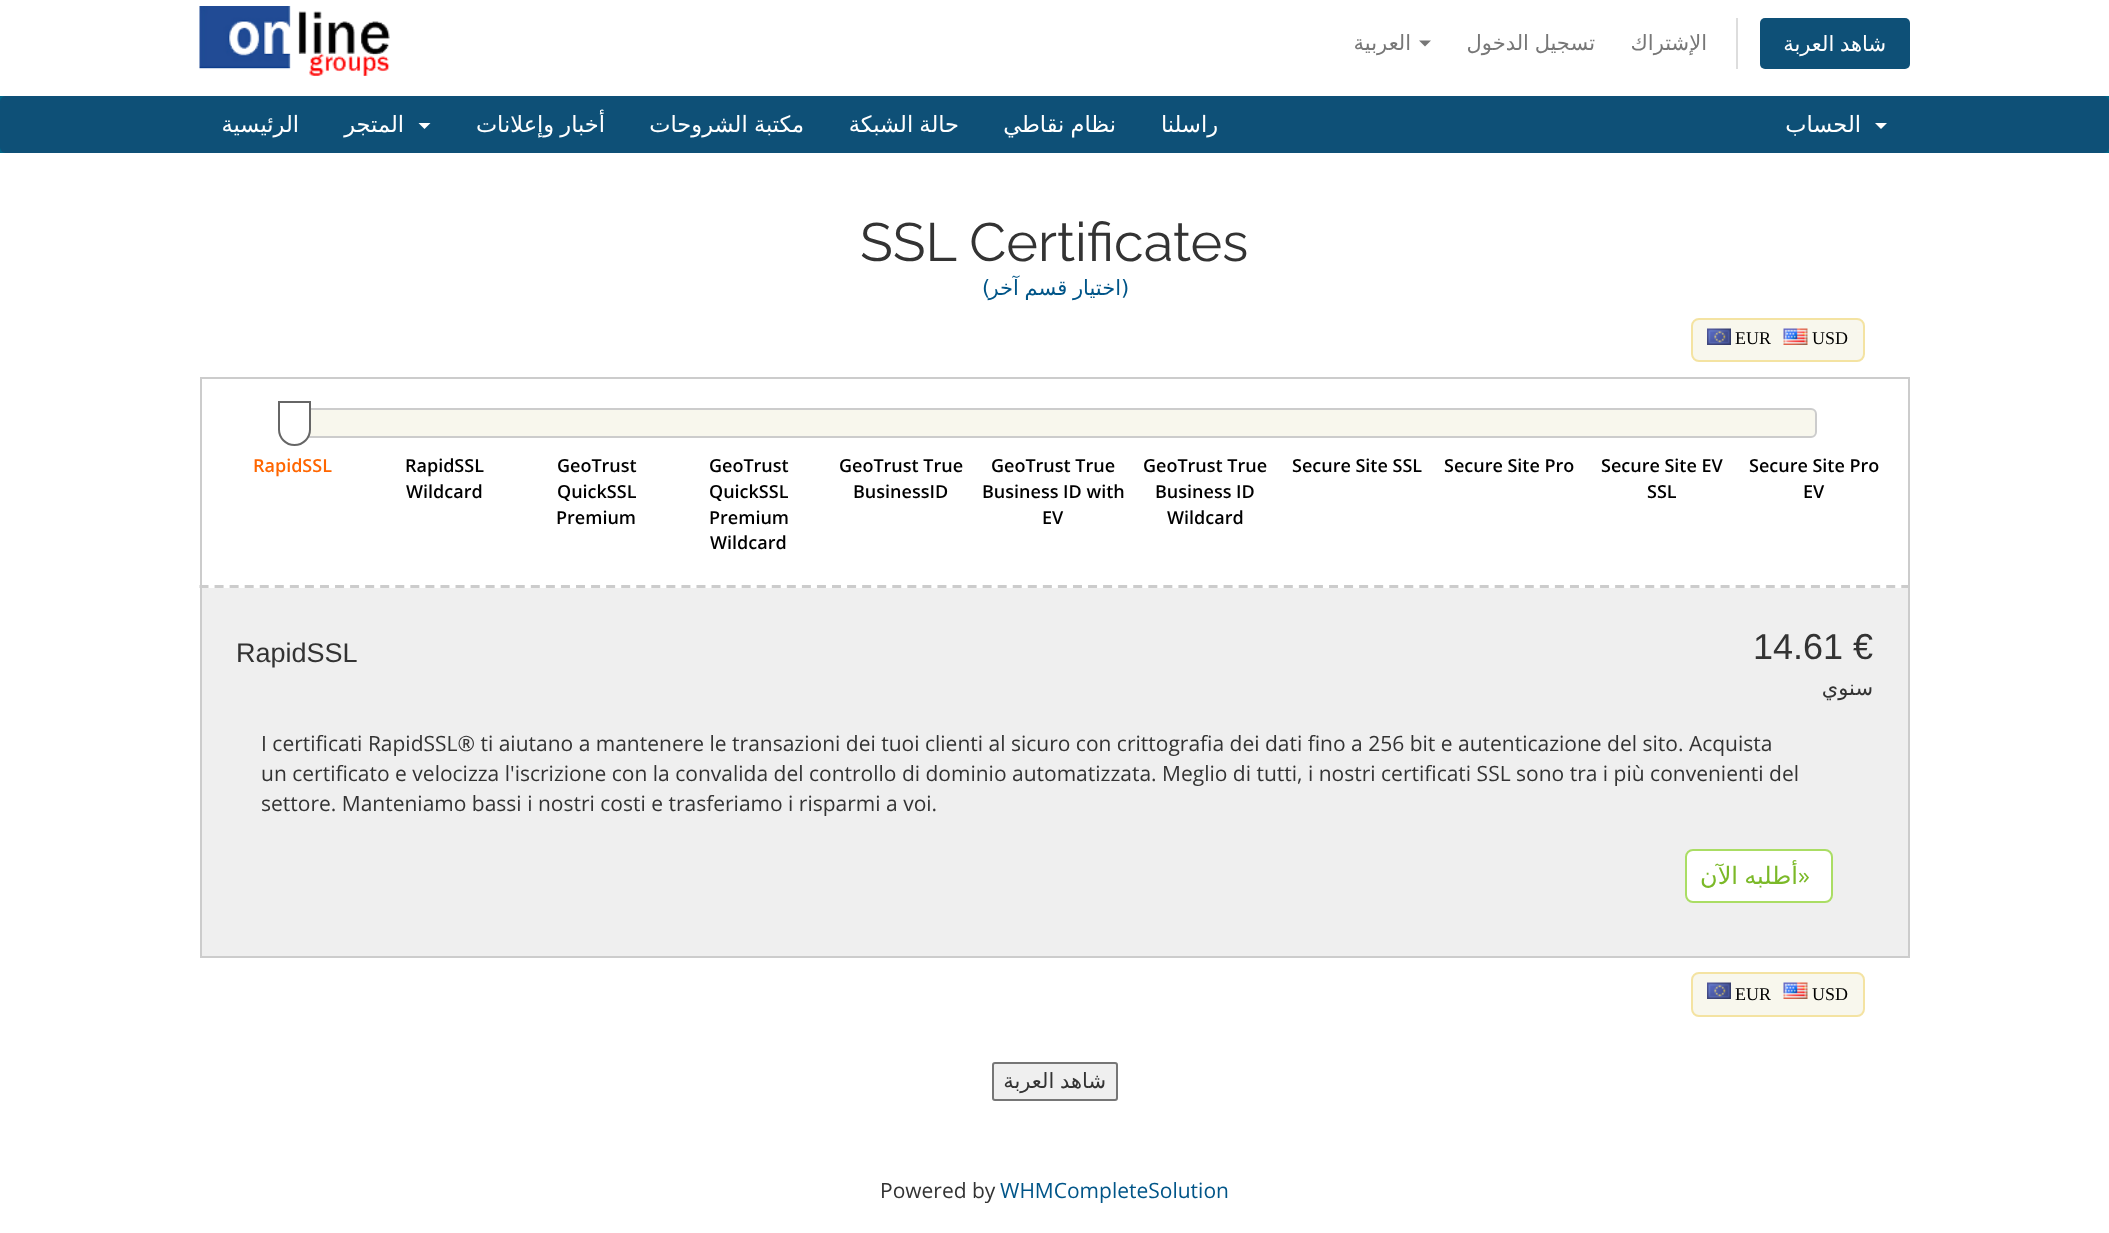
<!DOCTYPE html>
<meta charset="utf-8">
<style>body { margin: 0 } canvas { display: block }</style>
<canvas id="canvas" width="2109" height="1233"></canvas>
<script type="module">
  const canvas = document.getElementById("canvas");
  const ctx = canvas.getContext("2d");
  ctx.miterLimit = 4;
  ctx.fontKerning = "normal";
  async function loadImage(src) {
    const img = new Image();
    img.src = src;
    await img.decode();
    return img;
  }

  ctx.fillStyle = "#ffffff";
  ctx.fillRect(0, 0, 2109, 1233);
  ctx.drawImage(await loadImage("img1.png"), 199, 6, 191, 70);
  ctx.direction = "rtl";
  ctx.font = "21px DejaVu Sans";
  ctx.fillStyle = "#777777";
  ctx.fillText("العربية", 1411, 50);
  ctx.beginPath();
  ctx.moveTo(1419, 40.5);
  ctx.lineTo(1431, 40.5);
  ctx.lineTo(1425, 46.5);
  ctx.closePath();
  ctx.fill();
  ctx.wordSpacing = "-1px";
  ctx.fillText("تسجيل الدخول", 1595, 50);
  ctx.wordSpacing = "0px";
  ctx.fillText("الإشتراك", 1707, 50);
  ctx.fillStyle = "#dddddd";
  ctx.fillRect(1736, 18, 2, 51);
  ctx.fillStyle = "#0e5077";
  ctx.beginPath();
  ctx.roundRect(1760, 18, 150, 51, 5);
  ctx.fill();
  ctx.wordSpacing = "-1px";
  ctx.fillStyle = "#ffffff";
  ctx.fillText("شاهد العربة", 1886, 51);
  ctx.fillStyle = "#006687";
  ctx.fillRect(0, 96, 2109, 57);
  ctx.fillStyle = "#0e5077";
  ctx.beginPath();
  ctx.roundRect(0, 96, 2109, 57, 6);
  ctx.fill();
  ctx.wordSpacing = "0px";
  ctx.font = "22.5px DejaVu Sans";
  ctx.fillStyle = "#ffffff";
  ctx.fillText("الرئيسية", 299, 132);
  ctx.fillText("المتجر", 404, 132);
  ctx.beginPath();
  ctx.moveTo(418.5, 123);
  ctx.lineTo(430.5, 123);
  ctx.lineTo(424.5, 129);
  ctx.closePath();
  ctx.fill();
  ctx.wordSpacing = "-1px";
  ctx.fillText("أخبار وإعلانات", 605, 132);
  ctx.fillText("مكتبة الشروحات", 804, 132);
  ctx.fillText("حالة الشبكة", 959, 132);
  ctx.fillText("نظام نقاطي", 1116, 132);
  ctx.wordSpacing = "0px";
  ctx.fillText("راسلنا", 1218, 132);
  ctx.fillText("الحساب", 1861, 132);
  ctx.beginPath();
  ctx.moveTo(1875, 123);
  ctx.lineTo(1887, 123);
  ctx.lineTo(1881, 129);
  ctx.closePath();
  ctx.fill();
  ctx.direction = "ltr";
  ctx.font = "54px Raleway";
  ctx.fillStyle = "#333333";
  ctx.fillText("SSL Certificates", 860, 261);
  ctx.font = "21px DejaVu Sans";
  ctx.fillStyle = "#005588";
  ctx.fillText("(", 982, 295);
  ctx.wordSpacing = "-1px";
  ctx.direction = "rtl";
  ctx.fillText("اختيار قسم آخر", 1121, 295);
  ctx.wordSpacing = "0px";
  ctx.direction = "ltr";
  ctx.fillText(")", 1121, 295);
  ctx.fillStyle = "#f8f7ed";
  ctx.beginPath();
  ctx.roundRect(1692, 319, 172, 42, 7);
  ctx.fill();
  ctx.strokeStyle = "#f4e3a2";
  ctx.lineWidth = 2;
  ctx.stroke();
  ctx.drawImage(await loadImage("img2.png"), 1707, 328, 24, 17);
  ctx.font = "18px Liberation Serif";
  ctx.fillStyle = "#000000";
  ctx.fillText("EUR", 1735, 344);
  ctx.drawImage(await loadImage("img3.png"), 1783, 328, 25, 17);
  ctx.fillText("USD", 1812, 344);
  ctx.fillStyle = "#cccccc";
  ctx.fillRect(200, 377, 1710, 2);
  ctx.fillRect(1908, 377, 2, 580);
  ctx.beginPath();
  ctx.moveTo(199.5, 586.5);
  ctx.lineTo(1909.5, 586.5);
  ctx.strokeStyle = "#cccccc";
  ctx.lineWidth = 3;
  ctx.setLineDash([9, 6.06]);
  ctx.stroke();
  ctx.fillRect(200, 377, 2, 211);
  ctx.fillStyle = "#f8f7ed";
  ctx.beginPath();
  ctx.roundRect(294, 409, 1522, 28, 5);
  ctx.fill();
  ctx.lineWidth = 2;
  ctx.setLineDash([]);
  ctx.stroke();
  ctx.fillStyle = "#ffffff";
  ctx.beginPath();
  ctx.roundRect(279, 402, 31, 43, [0, 0, 15.5, 15.5]);
  ctx.fill();
  ctx.strokeStyle = "#666666";
  ctx.stroke();
  ctx.font = "600 18px Open Sans";
  ctx.fillStyle = "#ff6600";
  ctx.fillText("RapidSSL", 253, 472);
  ctx.fillStyle = "#000000";
  ctx.fillText("RapidSSL", 405, 472);
  ctx.fillText("Wildcard", 406, 498);
  ctx.fillText("GeoTrust", 557, 472);
  ctx.fillText("QuickSSL", 557, 498);
  ctx.fillText("Premium", 556, 524);
  ctx.fillText("GeoTrust", 709, 472);
  ctx.fillText("QuickSSL", 709, 498);
  ctx.fillText("Premium", 709, 524);
  ctx.fillText("Wildcard", 710, 549);
  ctx.fillText("GeoTrust True", 839, 472);
  ctx.fillText("BusinessID", 853, 498);
  ctx.fillText("GeoTrust True", 991, 472);
  ctx.fillText("Business ID with", 982, 498);
  ctx.fillText("EV", 1042, 524);
  ctx.fillText("GeoTrust True", 1143, 472);
  ctx.fillText("Business ID", 1155, 498);
  ctx.fillText("Wildcard", 1167, 524);
  ctx.fillText("Secure Site SSL", 1292, 472);
  ctx.fillText("Secure Site Pro", 1444, 472);
  ctx.fillText("Secure Site EV", 1601, 472);
  ctx.fillText("SSL", 1647, 498);
  ctx.fillText("Secure Site Pro", 1749, 472);
  ctx.fillText("EV", 1803, 498);
  ctx.fillStyle = "#efefef";
  ctx.fillRect(202, 588, 1706, 368);
  ctx.fillStyle = "#cccccc";
  ctx.fillRect(200, 956, 1710, 2);
  ctx.fillRect(200, 588, 2, 369);
  ctx.font = "27px Liberation Sans";
  ctx.fillStyle = "#333333";
  ctx.fillText("RapidSSL", 236, 662);
  ctx.font = "36px Liberation Sans";
  ctx.fillText("14.61 €", 1753, 659);
  ctx.direction = "rtl";
  ctx.font = "21px DejaVu Sans";
  ctx.fillText("سنوي", 1873, 695);
  ctx.direction = "ltr";
  ctx.font = "21px Open Sans";
  ctx.fillText("I certificati RapidSSL® ti aiutano a mantenere le transazioni dei tuoi clienti al sicuro con crittografia dei dati fino a 256 bit e autenticazione del sito. Acquista", 261, 751);
  ctx.fillText("un certificato e velocizza l'iscrizione con la convalida del controllo di dominio automatizzata. Meglio di tutti, i nostri certificati SSL sono tra i più convenienti del", 261, 781);
  ctx.fillText("settore. Manteniamo bassi i nostri costi e trasferiamo i risparmi a voi.", 261, 811);
  ctx.fillStyle = "#ffffff";
  ctx.beginPath();
  ctx.roundRect(1686, 850, 146, 52, 7);
  ctx.fill();
  ctx.strokeStyle = "#aadd64";
  ctx.stroke();
  ctx.direction = "rtl";
  ctx.font = "24px DejaVu Sans";
  ctx.fillStyle = "#7bb928";
  ctx.fillText("الآن", 1738, 884);
  ctx.fillText("أطلبه", 1798, 884);
  ctx.direction = "ltr";
  ctx.font = "24px Open Sans";
  ctx.fillText("»", 1798, 884);
  ctx.fillStyle = "#f8f7ed";
  ctx.beginPath();
  ctx.roundRect(1692, 973, 172, 43, 7);
  ctx.fill();
  ctx.strokeStyle = "#f4e3a2";
  ctx.stroke();
  ctx.drawImage(await loadImage("img2.png"), 1707, 982, 24, 17);
  ctx.font = "18px Liberation Serif";
  ctx.fillStyle = "#000000";
  ctx.fillText("EUR", 1735, 1000);
  ctx.drawImage(await loadImage("img3.png"), 1783, 982, 25, 17);
  ctx.fillText("USD", 1812, 1000);
  ctx.fillStyle = "#efefef";
  ctx.beginPath();
  ctx.roundRect(993, 1063, 124, 37, 2);
  ctx.fill();
  ctx.strokeStyle = "#767676";
  ctx.stroke();
  ctx.wordSpacing = "-1px";
  ctx.direction = "rtl";
  ctx.font = "21px DejaVu Sans";
  ctx.fillStyle = "#333333";
  ctx.fillText("شاهد العربة", 1106, 1088);
  ctx.wordSpacing = "0px";
  ctx.direction = "ltr";
  ctx.font = "21px Open Sans";
  ctx.fillText("Powered by", 880, 1198);
  ctx.fillStyle = "#005588";
  ctx.fillText("WHMCompleteSolution", 1000, 1198);
</script>
